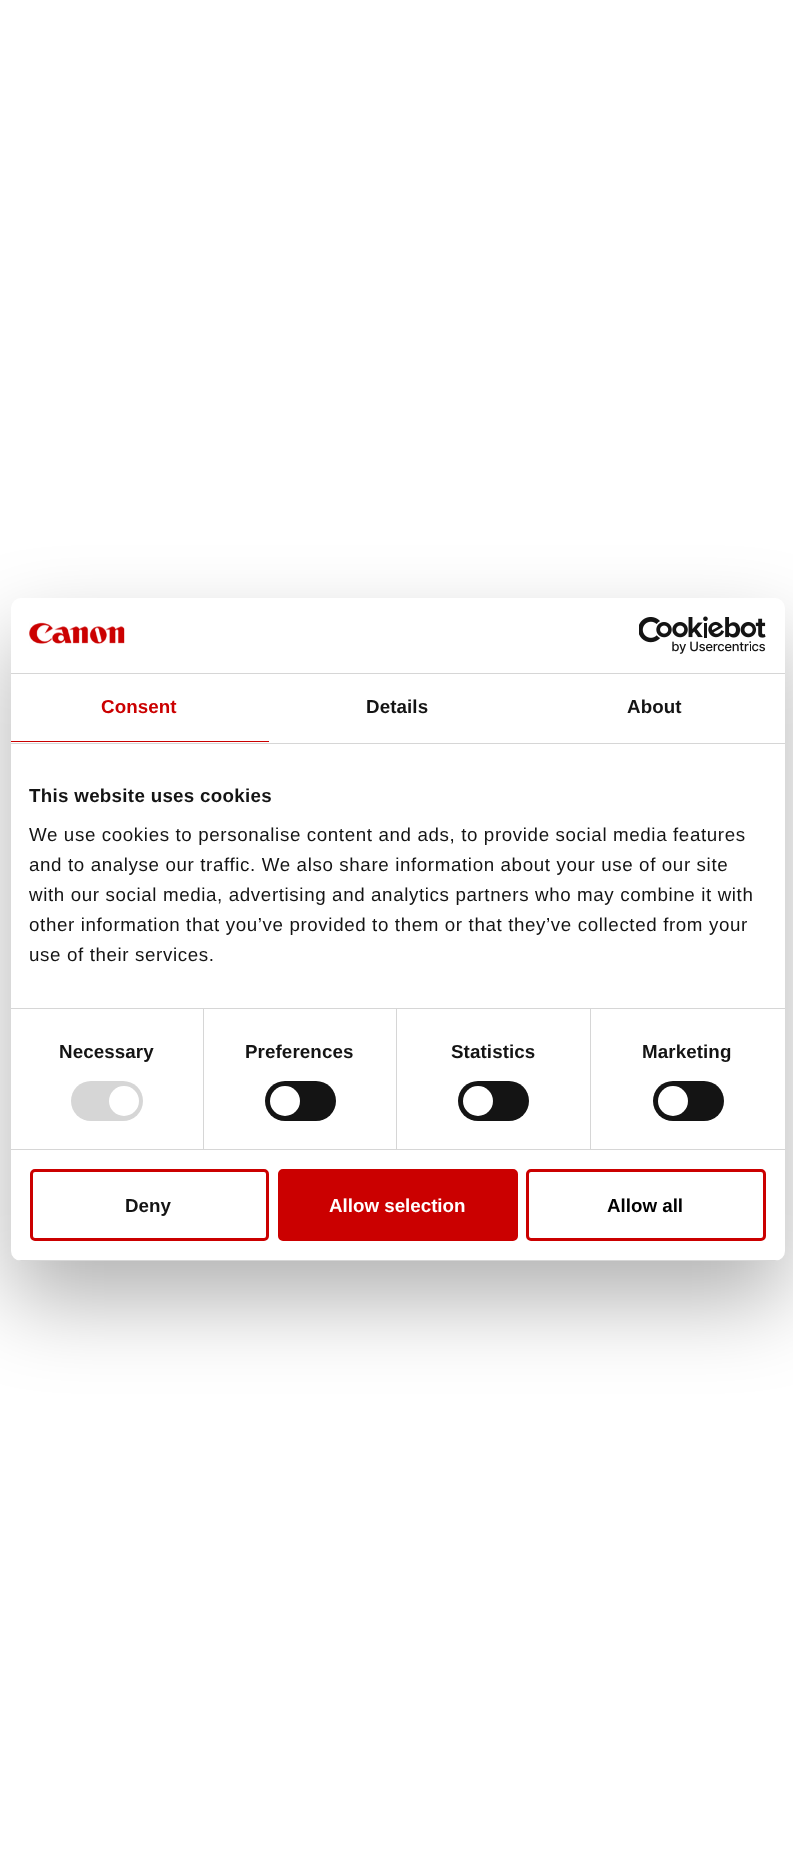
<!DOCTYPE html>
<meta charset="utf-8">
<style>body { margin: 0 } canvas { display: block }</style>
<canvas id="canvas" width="793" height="1858"></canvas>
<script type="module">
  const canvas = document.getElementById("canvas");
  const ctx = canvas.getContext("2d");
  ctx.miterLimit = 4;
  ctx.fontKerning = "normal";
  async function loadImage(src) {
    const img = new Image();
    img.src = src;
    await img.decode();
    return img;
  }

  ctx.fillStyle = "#ffffff";
  ctx.fillRect(0, 0, 793, 1858);
  ctx.fillStyle = "rgba(0, 0, 0, 0.3)";
  ctx.filter = "blur(42.5px)";
  ctx.beginPath();
  ctx.roundRect(11, 638, 774, 663, 10);
  ctx.fill();
  ctx.filter = "none";
  ctx.fillStyle = "#ffffff";
  ctx.beginPath();
  ctx.roundRect(11, 598, 774, 663, 10);
  ctx.fill();
  ctx.fillStyle = "#d6d6d6";
  ctx.fillRect(11, 673, 774, 1);
  ctx.drawImage(await loadImage("img1.png"), 29, 622, 96, 22);
  ctx.drawImage(await loadImage("img2.png"), 639, 616, 127, 38);
  ctx.fillRect(11, 743, 774, 1);
  ctx.fillStyle = "#cb0000";
  ctx.fillRect(11, 741, 258, 1);
  ctx.letterSpacing = "0.1px";
  ctx.font = "bold 18.75px Liberation Sans";
  ctx.fillText("Consent", 101, 713);
  ctx.fillStyle = "#141414";
  ctx.fillText("Details", 366, 713);
  ctx.fillText("About", 627, 713);
  ctx.fillStyle = "#d6d6d6";
  ctx.fillRect(11, 1008, 774, 1);
  ctx.letterSpacing = "0.3px";
  ctx.fillStyle = "#141414";
  ctx.fillText("This website uses cookies", 29, 802);
  ctx.letterSpacing = "0.62px";
  ctx.font = "18.75px Liberation Sans";
  ctx.fillText("We use cookies to personalise content and ads, to provide social media features", 29, 841);
  ctx.fillText("and to analyse our traffic. We also share information about your use of our site", 29, 871);
  ctx.fillText("with our social media, advertising and analytics partners who may combine it with", 29, 901);
  ctx.fillText("other information that you’ve provided to them or that they’ve collected from your", 29, 931);
  ctx.fillText("use of their services.", 29, 961);
  ctx.fillStyle = "#d6d6d6";
  ctx.fillRect(11, 1149, 774, 1);
  ctx.fillRect(203, 1009, 1, 140);
  ctx.letterSpacing = "0.1px";
  ctx.font = "bold 18.75px Liberation Sans";
  ctx.fillStyle = "#141414";
  ctx.fillText("Necessary", 59, 1058);
  ctx.fillStyle = "#d6d6d6";
  ctx.beginPath();
  ctx.roundRect(71, 1081, 72, 40, 20);
  ctx.fill();
  ctx.fillStyle = "#ffffff";
  ctx.beginPath();
  ctx.arc(124, 1101, 15, 0, Math.PI * 2);
  ctx.fill();
  ctx.fillStyle = "#d6d6d6";
  ctx.fillRect(396, 1009, 1, 140);
  ctx.fillStyle = "#141414";
  ctx.fillText("Preferences", 245, 1058);
  ctx.beginPath();
  ctx.roundRect(265, 1081, 71, 40, 20);
  ctx.fill();
  ctx.fillStyle = "#ffffff";
  ctx.beginPath();
  ctx.arc(285, 1101, 15, 0, Math.PI * 2);
  ctx.fill();
  ctx.fillStyle = "#d6d6d6";
  ctx.fillRect(590, 1009, 1, 140);
  ctx.fillStyle = "#141414";
  ctx.fillText("Statistics", 451, 1058);
  ctx.beginPath();
  ctx.roundRect(458, 1081, 71, 40, 20);
  ctx.fill();
  ctx.fillStyle = "#ffffff";
  ctx.beginPath();
  ctx.arc(478, 1101, 15, 0, Math.PI * 2);
  ctx.fill();
  ctx.fillStyle = "#141414";
  ctx.fillText("Marketing", 642, 1058);
  ctx.beginPath();
  ctx.roundRect(653, 1081, 71, 40, 20);
  ctx.fill();
  ctx.fillStyle = "#ffffff";
  ctx.beginPath();
  ctx.arc(673, 1101, 15, 0, Math.PI * 2);
  ctx.fill();
  ctx.save();
  ctx.beginPath();
  ctx.roundRect(11, 598, 774, 663, 10);
  ctx.clip();
  ctx.fillStyle = "#d6d6d6";
  ctx.fillRect(11, 1260, 774, 1);
  ctx.restore();
  ctx.beginPath();
  ctx.roundRect(31.5, 1170.5, 236, 69, 3.5);
  ctx.strokeStyle = "#cb0000";
  ctx.lineWidth = 3;
  ctx.stroke();
  ctx.letterSpacing = "0px";
  ctx.fillStyle = "#141414";
  ctx.fillText("Deny", 125, 1212);
  ctx.fillStyle = "#cb0000";
  ctx.beginPath();
  ctx.roundRect(279.5, 1170.5, 237, 69, 3.5);
  ctx.fill();
  ctx.stroke();
  ctx.fillStyle = "#ffffff";
  ctx.fillText("Allow selection", 329, 1212);
  ctx.beginPath();
  ctx.roundRect(527.5, 1170.5, 237, 69, 3.5);
  ctx.stroke();
  ctx.fillStyle = "#000000";
  ctx.fillText("Allow all", 607, 1212);
</script>
